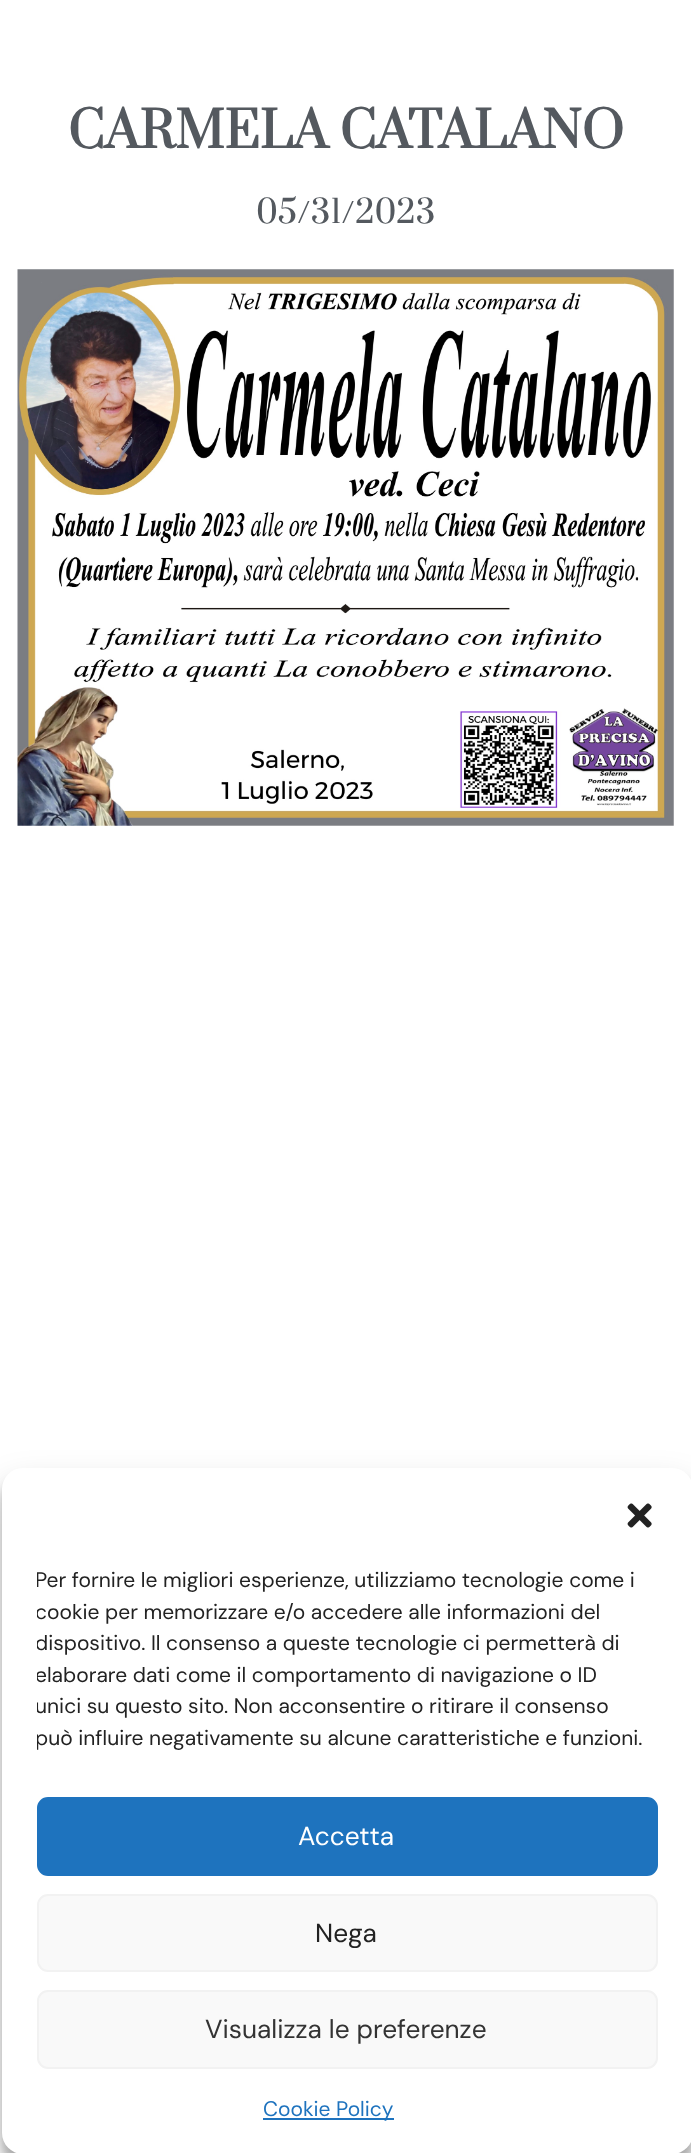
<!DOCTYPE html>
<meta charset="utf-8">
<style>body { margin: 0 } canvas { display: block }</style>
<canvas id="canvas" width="691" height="2153"></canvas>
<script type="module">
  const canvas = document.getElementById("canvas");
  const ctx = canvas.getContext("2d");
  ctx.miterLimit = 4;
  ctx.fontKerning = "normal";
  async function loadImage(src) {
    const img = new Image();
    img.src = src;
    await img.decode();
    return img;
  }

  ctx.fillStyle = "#ffffff";
  ctx.fillRect(0, 0, 691, 2153);
  ctx.font = "bold 48.9px Prata";
  ctx.fillStyle = "#54595f";
  ctx.fillText("CARMELA CATALANO", 68, 148);
  ctx.font = "31.5px Prata";
  ctx.fillText("05/31/2023", 256, 223);
  ctx.drawImage(await loadImage("img1.png"), 17, 269, 657, 557);
  ctx.fillStyle = "rgba(0, 0, 0, 0.23)";
  ctx.filter = "blur(5px)";
  ctx.beginPath();
  ctx.roundRect(2, 1479, 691, 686, 21);
  ctx.fill();
  ctx.filter = "none";
  ctx.fillStyle = "rgba(0, 0, 0, 0.19)";
  ctx.filter = "blur(17.5px)";
  ctx.beginPath();
  ctx.roundRect(2, 1486, 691, 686, 21);
  ctx.fill();
  ctx.filter = "none";
  ctx.fillStyle = "#ffffff";
  ctx.beginPath();
  ctx.roundRect(2, 1468, 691, 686, 21);
  ctx.fill();
  ctx.drawImage(await loadImage("img2.png"), 627, 1503, 25, 25);
  ctx.save();
  ctx.beginPath();
  ctx.rect(37, 1565, 621, 197);
  ctx.clip();
  ctx.font = "21px DM Sans";
  ctx.fillStyle = "#222222";
  ctx.fillText("Per fornire le migliori esperienze, utilizziamo tecnologie come i", 35, 1587);
  ctx.fillText("cookie per memorizzare e/o accedere alle informazioni del", 35, 1619);
  ctx.fillText("dispositivo. Il consenso a queste tecnologie ci permetterà di", 35, 1650);
  ctx.fillText("elaborare dati come il comportamento di navigazione o ID", 35, 1682);
  ctx.fillText("unici su questo sito. Non acconsentire o ritirare il consenso", 35, 1713);
  ctx.fillText("può influire negativamente su alcune caratteristiche e funzioni.", 35, 1745);
  ctx.restore();
  ctx.fillStyle = "#1e73be";
  ctx.beginPath();
  ctx.roundRect(38, 1798, 619, 77, 10);
  ctx.fill();
  ctx.strokeStyle = "#1e73be";
  ctx.lineWidth = 2;
  ctx.stroke();
  ctx.font = "26.25px DM Sans";
  ctx.fillStyle = "#ffffff";
  ctx.fillText("Accetta", 298, 1845);
  ctx.fillStyle = "#f9f9f9";
  ctx.beginPath();
  ctx.roundRect(38, 1895, 619, 76, 10);
  ctx.fill();
  ctx.strokeStyle = "#f2f2f2";
  ctx.stroke();
  ctx.fillStyle = "#222222";
  ctx.fillText("Nega", 315, 1942);
  ctx.fillStyle = "#f9f9f9";
  ctx.beginPath();
  ctx.roundRect(38, 1991, 619, 77, 10);
  ctx.fill();
  ctx.stroke();
  ctx.fillStyle = "#333333";
  ctx.fillText("Visualizza le preferenze", 205, 2038);
  ctx.fillStyle = "#1e73be";
  ctx.fillRect(263, 2118, 131, 2);
  ctx.font = "21px DM Sans";
  ctx.fillText("Cookie Policy", 263, 2116);
</script>
